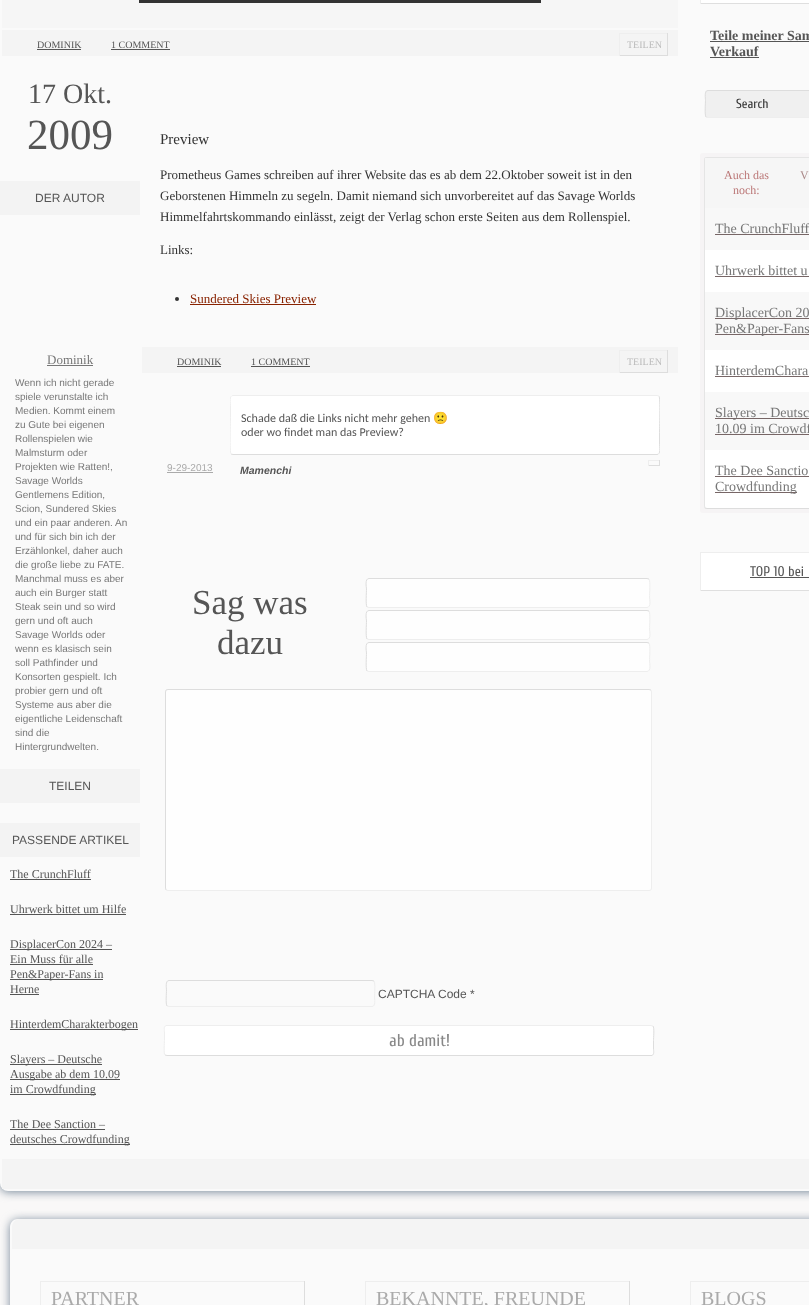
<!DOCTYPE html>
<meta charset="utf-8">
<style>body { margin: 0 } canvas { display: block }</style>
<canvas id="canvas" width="809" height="1305"></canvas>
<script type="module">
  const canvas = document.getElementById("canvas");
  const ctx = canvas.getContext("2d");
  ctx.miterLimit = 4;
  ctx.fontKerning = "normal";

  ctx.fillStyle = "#f9f8f8";
  ctx.fillRect(0, 0, 809, 1305);
  ctx.fillStyle = "#778899";
  ctx.filter = "blur(5px)";
  ctx.beginPath();
  ctx.roundRect(0, -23, 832, 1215, 8);
  ctx.fill();
  ctx.filter = "none";
  ctx.fillStyle = "#fafafa";
  ctx.beginPath();
  ctx.roundRect(0, -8, 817, 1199, 8);
  ctx.fill();
  ctx.fillStyle = "#f6f6f6";
  ctx.fillRect(2, 0, 676, 28);
  ctx.fillStyle = "#333333";
  ctx.fillRect(139, 0, 402, 3);
  ctx.fillStyle = "#f4f4f4";
  ctx.fillRect(2, 30, 676, 26);
  ctx.font = "10px Liberation Serif";
  ctx.fillStyle = "#555555";
  ctx.fillText("DOMINIK", 37, 48);
  ctx.fillRect(37, 49, 44, 1);
  ctx.fillText("1 COMMENT", 111, 48);
  ctx.fillRect(111, 49, 59, 1);
  ctx.fillStyle = "#eeeeee";
  ctx.fillRect(619, 33, 49, 1);
  ctx.fillStyle = "#dddddd";
  ctx.fillRect(667, 33, 1, 23);
  ctx.fillRect(619, 55, 49, 1);
  ctx.fillStyle = "#eeeeee";
  ctx.fillRect(619, 33, 1, 23);
  ctx.fillStyle = "#bbbbbb";
  ctx.fillText("TEILEN", 627, 48);
  ctx.font = "28px Liberation Serif";
  ctx.fillStyle = "#555555";
  ctx.fillText("17 Okt.", 28, 103);
  ctx.font = "43px Liberation Serif";
  ctx.fillText("2009", 27, 149);
  ctx.fillStyle = "#f3f3f3";
  ctx.fillRect(0, 181, 140, 34);
  ctx.font = "12px Liberation Sans";
  ctx.fillStyle = "#555555";
  ctx.fillText("DER AUTOR", 35, 202);
  ctx.font = "13px Liberation Serif";
  ctx.fillStyle = "#777777";
  ctx.fillText("Dominik", 47, 364);
  ctx.fillRect(47, 365, 46, 1);
  ctx.font = "10px Liberation Sans";
  ctx.fillText("Wenn ich nicht gerade", 15, 386);
  ctx.fillText("spiele verunstalte ich", 15, 400);
  ctx.fillText("Medien. Kommt einem", 15, 414);
  ctx.fillText("zu Gute bei eigenen", 15, 428);
  ctx.fillText("Rollenspielen wie", 15, 442);
  ctx.fillText("Malmsturm oder", 15, 456);
  ctx.fillText("Projekten wie Ratten!,", 15, 470);
  ctx.fillText("Savage Worlds", 15, 484);
  ctx.fillText("Gentlemens Edition,", 15, 498);
  ctx.fillText("Scion, Sundered Skies", 15, 512);
  ctx.fillText("und ein paar anderen. An", 15, 526);
  ctx.fillText("und für sich bin ich der", 15, 540);
  ctx.fillText("Erzählonkel, daher auch", 15, 554);
  ctx.fillText("die große liebe zu FATE.", 15, 568);
  ctx.fillText("Manchmal muss es aber", 15, 582);
  ctx.fillText("auch ein Burger statt", 15, 596);
  ctx.fillText("Steak sein und so wird", 15, 610);
  ctx.fillText("gern und oft auch", 15, 624);
  ctx.fillText("Savage Worlds oder", 15, 638);
  ctx.fillText("wenn es klasisch sein", 15, 652);
  ctx.fillText("soll Pathfinder und", 15, 666);
  ctx.fillText("Konsorten gespielt. Ich", 15, 680);
  ctx.fillText("probier gern und oft", 15, 694);
  ctx.fillText("Systeme aus aber die", 15, 708);
  ctx.fillText("eigentliche Leidenschaft", 15, 722);
  ctx.fillText("sind die", 15, 736);
  ctx.fillText("Hintergrundwelten.", 15, 750);
  ctx.fillStyle = "#f3f3f3";
  ctx.fillRect(0, 769, 140, 34);
  ctx.font = "12px Liberation Sans";
  ctx.fillStyle = "#555555";
  ctx.fillText("TEILEN", 49, 790);
  ctx.fillStyle = "#f3f3f3";
  ctx.fillRect(0, 823, 140, 34);
  ctx.fillStyle = "#555555";
  ctx.fillText("PASSENDE ARTIKEL", 12, 844);
  ctx.font = "12px Liberation Serif";
  ctx.fillText("The CrunchFluff", 10, 878);
  ctx.fillRect(10, 879, 81, 1);
  ctx.fillText("Uhrwerk bittet um Hilfe", 10, 913);
  ctx.fillRect(10, 914, 116, 1);
  ctx.fillRect(10, 949, 102, 1);
  ctx.fillText("DisplacerCon 2024 –", 10, 948);
  ctx.fillText("Ein Muss für alle", 10, 963);
  ctx.fillRect(10, 964, 83, 1);
  ctx.fillRect(10, 979, 93, 1);
  ctx.fillText("Pen&Paper-Fans in", 10, 978);
  ctx.fillText("Herne", 10, 993);
  ctx.fillRect(10, 994, 29, 1);
  ctx.fillRect(10, 1029, 128, 1);
  ctx.fillText("HinterdemCharakterbogen", 10, 1028);
  ctx.fillRect(10, 1064, 92, 1);
  ctx.fillText("Slayers – Deutsche", 10, 1063);
  ctx.fillRect(10, 1079, 110, 1);
  ctx.fillText("Ausgabe ab dem 10.09", 10, 1078);
  ctx.fillRect(10, 1094, 86, 1);
  ctx.fillText("im Crowdfunding", 10, 1093);
  ctx.fillText("The Dee Sanction –", 10, 1128);
  ctx.fillRect(10, 1129, 95, 1);
  ctx.fillRect(10, 1144, 120, 1);
  ctx.fillText("deutsches Crowdfunding", 10, 1143);
  ctx.font = "15px Liberation Serif";
  ctx.fillStyle = "#333333";
  ctx.fillText("Preview", 160, 144);
  ctx.font = "13px Liberation Serif";
  ctx.fillText("Prometheus Games schreiben auf ihrer Website das es ab dem 22.Oktober soweit ist in den", 160, 179);
  ctx.fillText("Geborstenen Himmeln zu segeln. Damit niemand sich unvorbereitet auf das Savage Worlds", 160, 200);
  ctx.fillText("Himmelfahrtskommando einlässt, zeigt der Verlag schon erste Seiten aus dem Rollenspiel.", 160, 221);
  ctx.fillText("Links:", 160, 254);
  ctx.beginPath();
  ctx.arc(177, 299, 2, 0, Math.PI * 2);
  ctx.fill();
  ctx.fillStyle = "#882200";
  ctx.fillText("Sundered Skies Preview", 190, 303);
  ctx.fillRect(190, 304, 126, 1);
  ctx.fillStyle = "#f4f4f4";
  ctx.fillRect(142, 347, 536, 26);
  ctx.font = "10px Liberation Serif";
  ctx.fillStyle = "#555555";
  ctx.fillText("DOMINIK", 177, 365);
  ctx.fillRect(177, 366, 44, 1);
  ctx.fillText("1 COMMENT", 251, 365);
  ctx.fillRect(251, 366, 59, 1);
  ctx.fillStyle = "#eeeeee";
  ctx.fillRect(619, 350, 49, 1);
  ctx.fillStyle = "#dddddd";
  ctx.fillRect(667, 350, 1, 23);
  ctx.fillRect(619, 372, 49, 1);
  ctx.fillStyle = "#eeeeee";
  ctx.fillRect(619, 350, 1, 23);
  ctx.fillStyle = "#bbbbbb";
  ctx.fillText("TEILEN", 627, 365);
  ctx.font = "10px Liberation Sans";
  ctx.fillStyle = "#aaaaaa";
  ctx.fillText("9-29-2013", 167, 471);
  ctx.fillRect(167, 472, 46, 1);
  ctx.fillStyle = "#ffffff";
  ctx.beginPath();
  ctx.roundRect(230, 395, 430, 60, 3);
  ctx.fill();
  ctx.save();
  ctx.beginPath();
  ctx.rect(230, 395, 430, 81);
  ctx.clip();
  ctx.beginPath();
  ctx.moveTo(659, 396);
  ctx.bezierCurveTo(660.5, 398, 659.5, 429, 659.5, 434);
  ctx.lineTo(659.5, 443);
  ctx.bezierCurveTo(659.5, 447.5, 661, 454.5, 657, 454.5);
  ctx.lineTo(233, 454.5);
  ctx.lineTo(231, 454);
  ctx.strokeStyle = "#dddddd";
  ctx.stroke();
  ctx.beginPath();
  ctx.moveTo(231, 454);
  ctx.bezierCurveTo(229.5, 452, 230.5, 421, 230.5, 416);
  ctx.lineTo(230.5, 407);
  ctx.bezierCurveTo(230.5, 402.5, 229, 395.5, 233, 395.5);
  ctx.lineTo(657, 395.5);
  ctx.lineTo(659, 396);
  ctx.strokeStyle = "#eeeeee";
  ctx.stroke();
  ctx.restore();
  ctx.font = "12px Carlito";
  ctx.fillStyle = "#555555";
  ctx.fillText("Schade daß die Links nicht mehr gehen", 241, 422);
  ctx.font = "12px Noto Color Emoji";
  ctx.fillText("🙁", 433, 422);
  ctx.font = "12px Carlito";
  ctx.fillText("oder wo findet man das Preview?", 241, 436);
  ctx.fillStyle = "#eeeeee";
  ctx.fillRect(648, 460, 12, 1);
  ctx.fillStyle = "#dddddd";
  ctx.fillRect(659, 460, 1, 6);
  ctx.fillRect(648, 465, 12, 1);
  ctx.fillStyle = "#eeeeee";
  ctx.fillRect(648, 460, 1, 6);
  ctx.font = "italic bold 10.5px Liberation Sans";
  ctx.fillStyle = "#555555";
  ctx.fillText("Mamenchi", 240, 474);
  ctx.font = "35px Liberation Serif";
  ctx.fillText("Sag was", 192, 614);
  ctx.fillText("dazu", 217, 654);
  ctx.fillStyle = "#fefefe";
  ctx.beginPath();
  ctx.roundRect(366, 578, 284, 30, 3);
  ctx.fill();
  ctx.beginPath();
  ctx.moveTo(649, 579);
  ctx.bezierCurveTo(650.5, 581, 649.5, 594, 649.5, 597);
  ctx.bezierCurveTo(649.5, 598.5, 651.5, 607.5, 647, 607.5);
  ctx.lineTo(369, 607.5);
  ctx.lineTo(367, 607);
  ctx.strokeStyle = "#eeeeee";
  ctx.stroke();
  ctx.beginPath();
  ctx.moveTo(367, 607);
  ctx.bezierCurveTo(365.5, 605, 366.5, 592, 366.5, 589);
  ctx.bezierCurveTo(366.5, 587.5, 364.5, 578.5, 369, 578.5);
  ctx.lineTo(647, 578.5);
  ctx.lineTo(649, 579);
  ctx.strokeStyle = "#dddddd";
  ctx.stroke();
  ctx.beginPath();
  ctx.roundRect(366, 610, 284, 30, 3);
  ctx.fill();
  ctx.beginPath();
  ctx.moveTo(649, 611);
  ctx.bezierCurveTo(650.5, 613, 649.5, 626, 649.5, 629);
  ctx.bezierCurveTo(649.5, 630.5, 651.5, 639.5, 647, 639.5);
  ctx.lineTo(369, 639.5);
  ctx.lineTo(367, 639);
  ctx.strokeStyle = "#eeeeee";
  ctx.stroke();
  ctx.beginPath();
  ctx.moveTo(367, 639);
  ctx.bezierCurveTo(365.5, 637, 366.5, 624, 366.5, 621);
  ctx.bezierCurveTo(366.5, 619.5, 364.5, 610.5, 369, 610.5);
  ctx.lineTo(647, 610.5);
  ctx.lineTo(649, 611);
  ctx.strokeStyle = "#dddddd";
  ctx.stroke();
  ctx.beginPath();
  ctx.roundRect(366, 642, 284, 30, 3);
  ctx.fill();
  ctx.beginPath();
  ctx.moveTo(649, 643);
  ctx.bezierCurveTo(650.5, 645, 649.5, 658, 649.5, 661);
  ctx.bezierCurveTo(649.5, 662.5, 651.5, 671.5, 647, 671.5);
  ctx.lineTo(369, 671.5);
  ctx.lineTo(367, 671);
  ctx.strokeStyle = "#eeeeee";
  ctx.stroke();
  ctx.beginPath();
  ctx.moveTo(367, 671);
  ctx.bezierCurveTo(365.5, 669, 366.5, 656, 366.5, 653);
  ctx.bezierCurveTo(366.5, 651.5, 364.5, 642.5, 369, 642.5);
  ctx.lineTo(647, 642.5);
  ctx.lineTo(649, 643);
  ctx.strokeStyle = "#dddddd";
  ctx.stroke();
  ctx.beginPath();
  ctx.roundRect(165, 689, 487, 202, 3);
  ctx.fill();
  ctx.beginPath();
  ctx.moveTo(651, 690);
  ctx.lineTo(651.5, 692);
  ctx.lineTo(651.5, 888);
  ctx.lineTo(651, 890);
  ctx.lineTo(649, 890.5);
  ctx.lineTo(168, 890.5);
  ctx.lineTo(166, 890);
  ctx.strokeStyle = "#eeeeee";
  ctx.stroke();
  ctx.beginPath();
  ctx.moveTo(166, 890);
  ctx.lineTo(165.5, 888);
  ctx.lineTo(165.5, 692);
  ctx.lineTo(166, 690);
  ctx.lineTo(168, 689.5);
  ctx.lineTo(649, 689.5);
  ctx.lineTo(651, 690);
  ctx.strokeStyle = "#dddddd";
  ctx.stroke();
  ctx.beginPath();
  ctx.moveTo(374, 981);
  ctx.bezierCurveTo(375.5, 983, 374.5, 994.5, 374.5, 997);
  ctx.bezierCurveTo(374.5, 998.5, 376, 1006.5, 372, 1006.5);
  ctx.lineTo(169, 1006.5);
  ctx.lineTo(167, 1006);
  ctx.strokeStyle = "#eeeeee";
  ctx.stroke();
  ctx.beginPath();
  ctx.moveTo(167, 1006);
  ctx.bezierCurveTo(165.5, 1004, 166.5, 992.5, 166.5, 990);
  ctx.bezierCurveTo(166.5, 988.5, 165, 980.5, 169, 980.5);
  ctx.lineTo(372, 980.5);
  ctx.lineTo(374, 981);
  ctx.strokeStyle = "#dddddd";
  ctx.stroke();
  ctx.font = "12px Liberation Sans";
  ctx.fillStyle = "#555555";
  ctx.fillText("CAPTCHA Code *", 378, 998);
  ctx.fillStyle = "#ffffff";
  ctx.beginPath();
  ctx.roundRect(164, 1025, 490, 31, 3);
  ctx.fill();
  ctx.beginPath();
  ctx.moveTo(653, 1026);
  ctx.bezierCurveTo(654.5, 1028, 653.5, 1038, 653.5, 1040.5);
  ctx.lineTo(653.5, 1049);
  ctx.bezierCurveTo(653.5, 1050.5, 654.5, 1054.5, 652, 1055.5);
  ctx.lineTo(167, 1055.5);
  ctx.lineTo(165, 1055);
  ctx.stroke();
  ctx.beginPath();
  ctx.moveTo(165, 1055);
  ctx.bezierCurveTo(163.5, 1053, 164.5, 1043, 164.5, 1040.5);
  ctx.lineTo(164.5, 1032);
  ctx.bezierCurveTo(164.5, 1030.5, 163.5, 1026.5, 166, 1025.5);
  ctx.lineTo(651, 1025.5);
  ctx.lineTo(653, 1026);
  ctx.strokeStyle = "#eeeeee";
  ctx.stroke();
  ctx.font = "17px Cuprum";
  ctx.fillStyle = "#888888";
  ctx.fillText("ab damit!", 389, 1046);
  ctx.fillStyle = "#ffffff";
  ctx.fillRect(700, 0, 109, 3);
  ctx.fillStyle = "#dfdfdf";
  ctx.fillRect(700, 3, 109, 1);
  ctx.fillStyle = "#eeeeee";
  ctx.fillRect(700, 0, 1, 4);
  ctx.font = "bold 14px Liberation Serif";
  ctx.fillStyle = "#555555";
  ctx.fillText("Teile meiner Sam", 710, 40);
  ctx.fillRect(710, 41, 99, 1);
  ctx.fillText("Verkauf", 710, 56);
  ctx.fillRect(710, 57, 49, 1);
  ctx.fillStyle = "#f0f0f0";
  ctx.beginPath();
  ctx.roundRect(705, 90, 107, 28, 3);
  ctx.fill();
  ctx.beginPath();
  ctx.moveTo(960, 91);
  ctx.bezierCurveTo(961.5, 93, 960.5, 105, 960.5, 107.5);
  ctx.bezierCurveTo(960.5, 109.5, 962, 117.5, 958, 117.5);
  ctx.lineTo(708, 117.5);
  ctx.lineTo(706, 117);
  ctx.stroke();
  ctx.beginPath();
  ctx.moveTo(706, 117);
  ctx.bezierCurveTo(704.5, 115, 705.5, 103, 705.5, 100.5);
  ctx.bezierCurveTo(705.5, 98.5, 704, 90.5, 708, 90.5);
  ctx.lineTo(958, 90.5);
  ctx.lineTo(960, 91);
  ctx.strokeStyle = "#dddddd";
  ctx.stroke();
  ctx.font = "13px Cuprum";
  ctx.fillStyle = "#333333";
  ctx.fillText("Search", 736, 108);
  ctx.fillStyle = "#f6f4f5";
  ctx.beginPath();
  ctx.roundRect(700, 153, 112, 360, 3);
  ctx.fill();
  ctx.fillStyle = "#cccccc";
  ctx.filter = "blur(0.5px)";
  ctx.beginPath();
  ctx.roundRect(704, 157, 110, 352, 3);
  ctx.fill();
  ctx.filter = "none";
  ctx.fillStyle = "#ffffff";
  ctx.beginPath();
  ctx.roundRect(704, 157, 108, 352, 3);
  ctx.fill();
  ctx.beginPath();
  ctx.moveTo(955, 158);
  ctx.lineTo(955.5, 160);
  ctx.lineTo(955.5, 506);
  ctx.lineTo(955, 508);
  ctx.lineTo(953, 508.5);
  ctx.lineTo(707, 508.5);
  ctx.lineTo(705, 508);
  ctx.stroke();
  ctx.beginPath();
  ctx.moveTo(705, 508);
  ctx.lineTo(704.5, 506);
  ctx.lineTo(704.5, 160);
  ctx.lineTo(705, 158);
  ctx.lineTo(707, 157.5);
  ctx.lineTo(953, 157.5);
  ctx.lineTo(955, 158);
  ctx.strokeStyle = "#e5e5e5";
  ctx.stroke();
  ctx.fillStyle = "#f6f6f6";
  ctx.fillRect(705, 158, 104, 50);
  ctx.font = "12px Liberation Serif";
  ctx.fillStyle = "#bb7777";
  ctx.fillText("Auch das", 724, 179);
  ctx.fillText("noch:", 733, 194);
  ctx.fillStyle = "#aa8888";
  ctx.fillText("V", 800, 179);
  ctx.fillStyle = "#f8f8f8";
  ctx.fillRect(705, 208, 104, 42);
  ctx.font = "14px Liberation Serif";
  ctx.fillStyle = "#777777";
  ctx.fillText("The CrunchFluff", 715, 233);
  ctx.fillStyle = "#776666";
  ctx.fillRect(715, 234, 94, 1);
  ctx.fillStyle = "#777777";
  ctx.fillText("Uhrwerk bittet u", 715, 275);
  ctx.fillStyle = "#776666";
  ctx.fillRect(715, 276, 94, 1);
  ctx.fillStyle = "#f8f8f8";
  ctx.fillRect(705, 292, 104, 58);
  ctx.fillStyle = "#776666";
  ctx.fillRect(715, 318, 94, 1);
  ctx.fillStyle = "#777777";
  ctx.fillText("DisplacerCon 20", 715, 317);
  ctx.fillStyle = "#776666";
  ctx.fillRect(715, 334, 94, 1);
  ctx.fillStyle = "#777777";
  ctx.fillText("Pen&Paper-Fans", 715, 333);
  ctx.fillText("HinterdemChara", 715, 375);
  ctx.fillStyle = "#776666";
  ctx.fillRect(715, 376, 94, 1);
  ctx.fillStyle = "#f8f8f8";
  ctx.fillRect(705, 392, 104, 58);
  ctx.fillStyle = "#776666";
  ctx.fillRect(715, 418, 94, 1);
  ctx.fillStyle = "#777777";
  ctx.fillText("Slayers – Deutsc", 715, 417);
  ctx.fillText("10.09 im Crowdf", 715, 433);
  ctx.fillStyle = "#776666";
  ctx.fillRect(715, 434, 94, 1);
  ctx.fillStyle = "#777777";
  ctx.fillText("The Dee Sanctio", 715, 475);
  ctx.fillStyle = "#776666";
  ctx.fillRect(715, 476, 94, 1);
  ctx.fillRect(715, 492, 82, 1);
  ctx.fillStyle = "#777777";
  ctx.fillText("Crowdfunding", 715, 491);
  ctx.fillStyle = "#ffffff";
  ctx.fillRect(701, 553, 108, 37);
  ctx.fillStyle = "#eeeeee";
  ctx.fillRect(700, 552, 109, 1);
  ctx.fillStyle = "#dfdfdf";
  ctx.fillRect(700, 590, 109, 1);
  ctx.fillStyle = "#eeeeee";
  ctx.fillRect(700, 552, 1, 39);
  ctx.font = "14px Cuprum";
  ctx.fillStyle = "#555555";
  ctx.fillText("TOP 10 bei", 750, 576);
  ctx.fillRect(750, 577, 59, 1);
  ctx.fillStyle = "#f4f4f4";
  ctx.fillRect(2, 1159, 807, 30);
  ctx.fillStyle = "#778899";
  ctx.filter = "blur(5px)";
  ctx.beginPath();
  ctx.roundRect(10, 1220, 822, 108, 8);
  ctx.fill();
  ctx.filter = "none";
  ctx.fillStyle = "#fafafa";
  ctx.beginPath();
  ctx.moveTo(18, 1219);
  ctx.lineTo(809, 1219);
  ctx.bezierCurveTo(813.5, 1219, 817, 1222.5, 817, 1227);
  ctx.lineTo(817, 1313);
  ctx.lineTo(10, 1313);
  ctx.lineTo(10, 1227);
  ctx.bezierCurveTo(10, 1222.5, 13.5, 1219, 18, 1219);
  ctx.closePath();
  ctx.fill();
  ctx.fillStyle = "#f4f4f4";
  ctx.beginPath();
  ctx.moveTo(20, 1219);
  ctx.lineTo(809, 1219);
  ctx.bezierCurveTo(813.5, 1219, 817, 1222.5, 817, 1227);
  ctx.lineTo(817, 1249);
  ctx.lineTo(12, 1249);
  ctx.lineTo(12, 1227);
  ctx.bezierCurveTo(12, 1222.5, 15.5, 1219, 20, 1219);
  ctx.closePath();
  ctx.fill();
  ctx.fillStyle = "#eeeeee";
  ctx.fillRect(40, 1281, 265, 1);
  ctx.fillStyle = "#dddddd";
  ctx.fillRect(304, 1281, 1, 24);
  ctx.fillStyle = "#eeeeee";
  ctx.fillRect(40, 1281, 1, 24);
  ctx.font = "20px Liberation Serif";
  ctx.fillStyle = "#aaaaaa";
  ctx.fillText("PARTNER", 51, 1305);
  ctx.fillStyle = "#eeeeee";
  ctx.fillRect(365, 1281, 265, 1);
  ctx.fillStyle = "#dddddd";
  ctx.fillRect(629, 1281, 1, 24);
  ctx.fillStyle = "#eeeeee";
  ctx.fillRect(365, 1281, 1, 24);
  ctx.fillStyle = "#aaaaaa";
  ctx.fillText("BEKANNTE, FREUNDE", 376, 1305);
  ctx.fillStyle = "#eeeeee";
  ctx.fillRect(690, 1281, 119, 1);
  ctx.fillRect(690, 1281, 1, 24);
  ctx.fillStyle = "#aaaaaa";
  ctx.fillText("BLOGS", 701, 1305);
</script>
